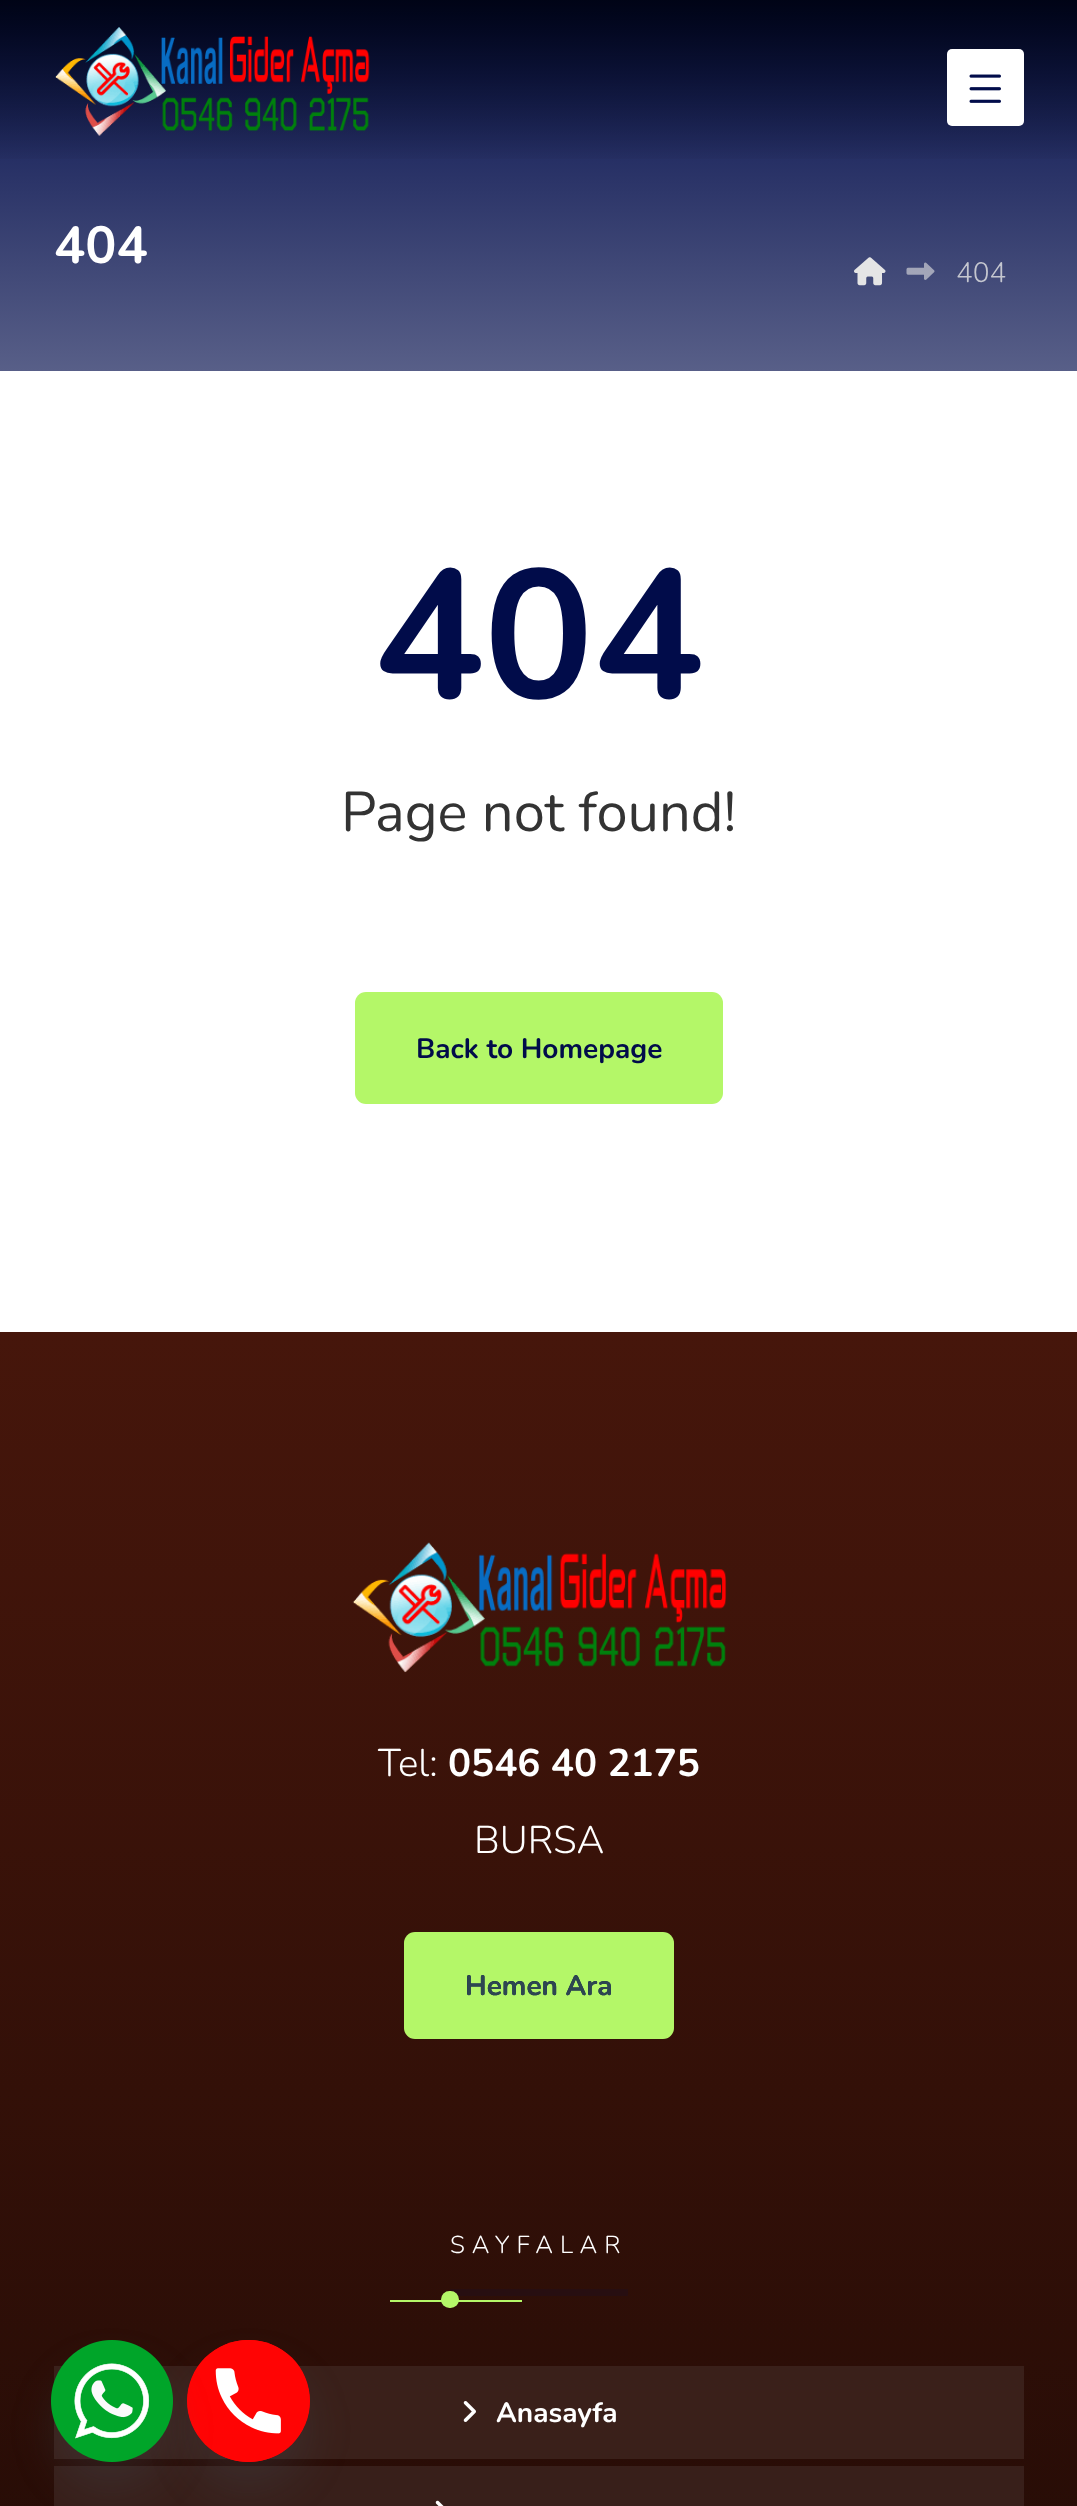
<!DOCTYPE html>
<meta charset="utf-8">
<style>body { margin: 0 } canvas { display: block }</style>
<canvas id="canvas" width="1077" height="2506"></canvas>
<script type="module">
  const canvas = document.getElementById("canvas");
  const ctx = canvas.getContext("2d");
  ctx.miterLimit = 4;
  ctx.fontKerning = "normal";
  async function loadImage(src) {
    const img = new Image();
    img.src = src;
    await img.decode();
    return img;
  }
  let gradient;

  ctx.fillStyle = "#ffffff";
  ctx.fillRect(0, 0, 1077, 2506);
  gradient = ctx.createLinearGradient(539, 0, 539, 371);
  gradient.addColorStop(0, "#010c4a");
  gradient.addColorStop(1, "#585f88");
  ctx.fillStyle = gradient;
  ctx.fillRect(0, 0, 1077, 371);
  gradient = ctx.createLinearGradient(539, 163, 539, 0);
  gradient.addColorStop(0, "rgba(0, 0, 0, 0.01)");
  gradient.addColorStop(1, "rgba(0, 0, 0, 0.7)");
  ctx.fillStyle = gradient;
  ctx.fillRect(0, 0, 1077, 159);
  ctx.drawImage(await loadImage("img1.png"), 55, 27, 315, 109);
  ctx.fillStyle = "#ffffff";
  ctx.beginPath();
  ctx.roundRect(947, 49, 77, 77, 5);
  ctx.fill();
  ctx.drawImage(await loadImage("img2.png"), 969, 74, 32, 29);
  ctx.font = "bold 52px Nunito";
  ctx.fillText("404", 54, 263);
  ctx.drawImage(await loadImage("img3.png"), 854, 257, 32, 29);
  ctx.drawImage(await loadImage("img4.png"), 906, 262, 29, 18);
  ctx.font = "300 28px Nunito";
  ctx.fillStyle = "#c4c6cf";
  ctx.fillText("404", 956, 282);
  ctx.font = "bold 183px Nunito";
  ctx.fillStyle = "#010c4a";
  ctx.fillText("404", 374, 698);
  ctx.font = "56px Nunito";
  ctx.fillStyle = "#333333";
  ctx.fillText("Page not found!", 341, 831);
  ctx.fillStyle = "#b4f768";
  ctx.beginPath();
  ctx.roundRect(355, 992, 368, 112, 11);
  ctx.fill();
  ctx.font = "bold 28px Nunito";
  ctx.fillStyle = "#010c4a";
  ctx.fillText("Back to Homepage", 416, 1058);
  gradient = ctx.createLinearGradient(539, 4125, 539, 1332);
  gradient.addColorStop(0, "#000000");
  gradient.addColorStop(1, "#46160b");
  ctx.fillStyle = gradient;
  ctx.fillRect(0, 1332, 1077, 1174);
  ctx.drawImage(await loadImage("img5.png"), 352, 1542, 375, 131);
  ctx.font = "300 38.5px Nunito";
  ctx.fillStyle = "#ffffff";
  ctx.fillText("Tel:", 378, 1776);
  ctx.font = "bold 38.5px Nunito";
  ctx.fillText("0546 40 2175", 448, 1776);
  ctx.font = "300 38.5px Nunito";
  ctx.fillText("BURSA", 474, 1853);
  ctx.fillStyle = "#b4f768";
  ctx.beginPath();
  ctx.roundRect(404, 1932, 270, 107, 11);
  ctx.fill();
  ctx.font = "bold 28px Nunito";
  ctx.fillStyle = "#010c4a";
  ctx.fillText("Hemen Ara", 465, 1995);
  ctx.fillStyle = "#2d4651";
  ctx.fillText("Hemen Ara", 465, 1995);
  ctx.fillStyle = "#270e11";
  ctx.fillRect(450, 2289, 178, 7);
  ctx.letterSpacing = "7px";
  ctx.font = "300 24.5px Nunito";
  ctx.fillStyle = "#ffffff";
  ctx.fillText("SAYFALAR", 450, 2253);
  ctx.fillStyle = "#b4f768";
  ctx.beginPath();
  ctx.roundRect(441, 2291, 18, 17, 8.5);
  ctx.fill();
  ctx.fillRect(390, 2300, 132, 2);
  ctx.fillStyle = "#3a201a";
  ctx.fillRect(54, 2366, 970, 93);
  ctx.drawImage(await loadImage("img6.png"), 463, 2401, 13, 21);
  ctx.letterSpacing = "0px";
  ctx.font = "bold 28px Nunito";
  ctx.fillStyle = "#ffffff";
  ctx.fillText("Anasayfa", 496, 2422);
  ctx.fillStyle = "#381f1a";
  ctx.fillRect(54, 2466, 970, 40);
  ctx.drawImage(await loadImage("img7.png"), 435, 2500, 9, 6);
  ctx.fillStyle = "rgba(73, 104, 126, 0.16)";
  ctx.filter = "blur(21px)";
  ctx.beginPath();
  ctx.roundRect(187, 2368, 123, 122, 61);
  ctx.fill();
  ctx.filter = "none";
  ctx.fillStyle = "#ff0404";
  ctx.beginPath();
  ctx.roundRect(187, 2340, 123, 122, 61);
  ctx.fill();
  ctx.drawImage(await loadImage("img9.png"), 187, 2340, 123, 122);
  ctx.fillStyle = "rgba(73, 104, 126, 0.16)";
  ctx.filter = "blur(21px)";
  ctx.beginPath();
  ctx.roundRect(51, 2368, 122, 122, 61);
  ctx.fill();
  ctx.filter = "none";
  ctx.drawImage(await loadImage("img8.png"), 51, 2340, 122, 122);
</script>
